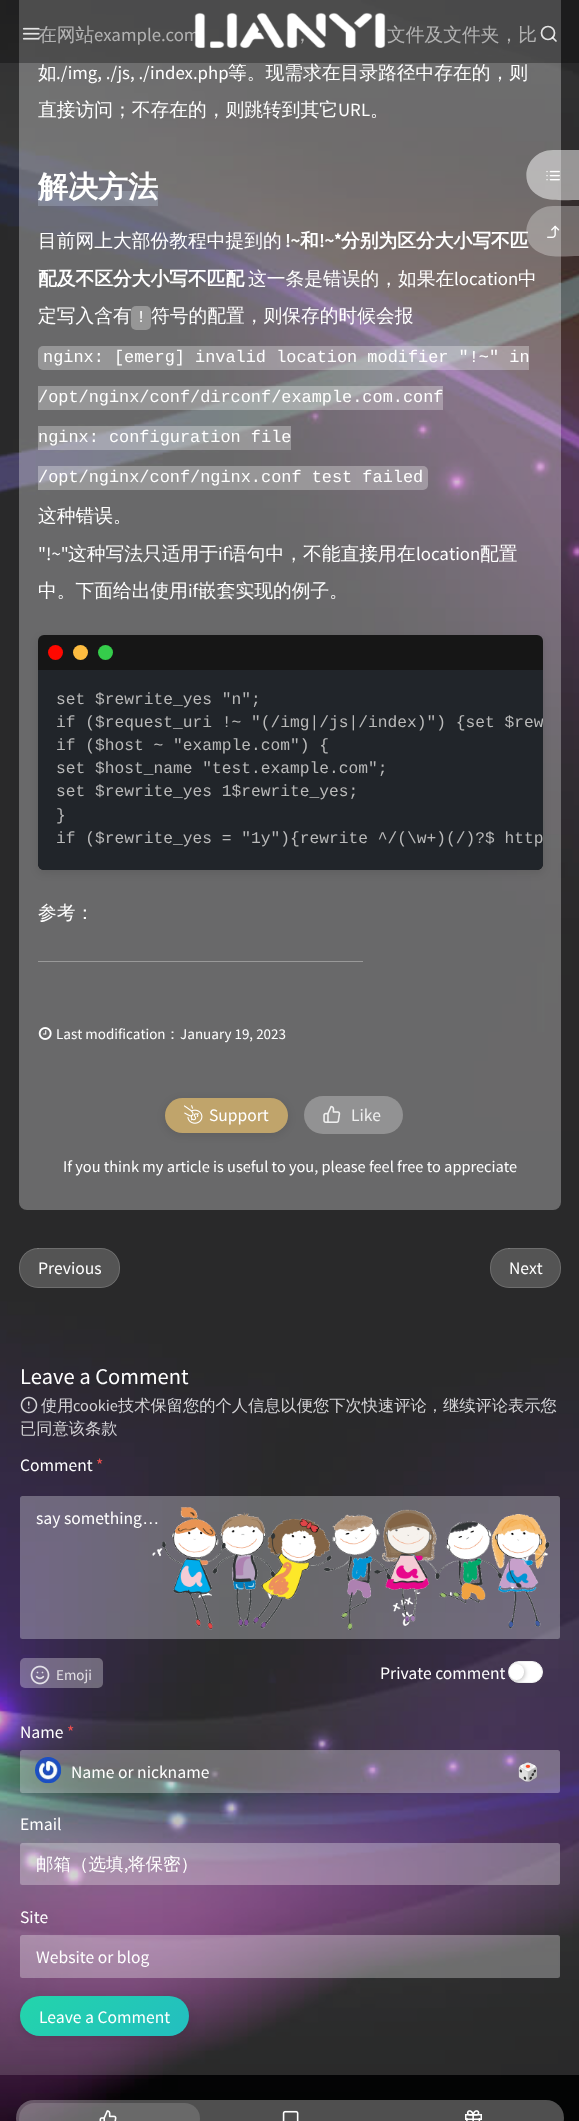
<!DOCTYPE html>
<meta charset="utf-8">
<style>body { margin: 0 } canvas { display: block }</style>
<canvas id="canvas" width="579" height="2121"></canvas>
<script type="module">
  const canvas = document.getElementById("canvas");
  const ctx = canvas.getContext("2d");
  ctx.miterLimit = 4;
  ctx.fontKerning = "normal";
  async function loadImage(src) {
    const img = new Image();
    img.src = src;
    await img.decode();
    return img;
  }
  let gradient;

  ctx.fillStyle = "#ffffff";
  ctx.fillRect(0, 0, 579, 2121);
  ctx.drawImage(await loadImage("img1.png"), 0, 0, 579, 2121);
  ctx.fillStyle = "rgba(255, 255, 255, 0.3)";
  ctx.beginPath();
  ctx.roundRect(19, -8, 542, 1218, 8);
  ctx.fill();
  ctx.font = "500 18.75px WenQuanYi Zen Hei";
  ctx.fillStyle = "#ffffff";
  ctx.fillText("在网站", 38, 41);
  ctx.font = "18.75px Source Sans Pro";
  ctx.fillText("example.com", 94, 41);
  ctx.font = "500 18.75px WenQuanYi Zen Hei";
  ctx.fillText("，", 293, 41);
  ctx.fillText("文件及文件夹，比", 387, 41);
  ctx.fillStyle = "rgba(0, 0, 0, 0.3)";
  ctx.fillRect(0, 0, 579, 63);
  ctx.drawImage(await loadImage("img2.png"), 22, 27, 18, 13);
  ctx.drawImage(await loadImage("img3.png"), 194, 12, 192, 36);
  ctx.beginPath();
  ctx.arc(548, 33, 6.5, 0, Math.PI * 2);
  ctx.strokeStyle = "#e4e4e4";
  ctx.lineWidth = 1.7;
  ctx.stroke();
  ctx.beginPath();
  ctx.moveTo(556, 41);
  ctx.lineTo(552.5, 37.5);
  ctx.strokeStyle = "rgba(255, 255, 255, 0.85)";
  ctx.lineCap = "round";
  ctx.lineJoin = "round";
  ctx.stroke();
  ctx.fillStyle = "#ffffff";
  ctx.fillText("如", 38, 79);
  ctx.font = "18.75px Source Sans Pro";
  ctx.fillText("./img, ./js, ./index.php", 56, 79);
  ctx.font = "500 18.75px WenQuanYi Zen Hei";
  ctx.fillText("等。现需求在目录路径中存在的，则", 228, 79);
  ctx.fillText("直接访问；不存在的，则跳转到其它", 38, 116);
  ctx.font = "18.75px Source Sans Pro";
  ctx.fillText("URL", 338, 116);
  ctx.font = "500 18.75px WenQuanYi Zen Hei";
  ctx.fillText("。", 370, 116);
  ctx.fillStyle = "rgba(189, 202, 219, 0.3)";
  ctx.fillRect(38, 191, 120, 15);
  ctx.font = "bold 30px WenQuanYi Zen Hei";
  ctx.fillStyle = "#ffffff";
  ctx.fillText("解决方法", 38, 197);
  ctx.font = "500 18.75px WenQuanYi Zen Hei";
  ctx.fillText("目前网上大部份教程中提到的", 38, 247);
  ctx.font = "bold 18.75px Source Sans Pro";
  ctx.fillText("!~", 285, 247);
  ctx.font = "bold 18.75px WenQuanYi Zen Hei";
  ctx.fillText("和", 300, 247);
  ctx.font = "bold 18.75px Source Sans Pro";
  ctx.fillText("!~*", 319, 247);
  ctx.font = "bold 18.75px WenQuanYi Zen Hei";
  ctx.fillText("分别为区分大小写不匹", 341, 247);
  ctx.fillText("配及不区分大小写不匹配", 38, 285);
  ctx.font = "500 18.75px WenQuanYi Zen Hei";
  ctx.fillText("这一条是错误的，如果在", 248, 285);
  ctx.font = "18.75px Source Sans Pro";
  ctx.fillText("location", 454, 285);
  ctx.font = "500 18.75px WenQuanYi Zen Hei";
  ctx.fillText("中", 518, 285);
  ctx.fillText("定写入含有", 38, 322);
  ctx.fillStyle = "#969696";
  ctx.beginPath();
  ctx.roundRect(131, 306, 20, 24, 5);
  ctx.fill();
  ctx.font = "16.9px Liberation Mono";
  ctx.fillStyle = "#ffffff";
  ctx.fillText("!", 136, 322);
  ctx.font = "500 18.75px WenQuanYi Zen Hei";
  ctx.fillText("符号的配置，则保存的时候会报", 151, 322);
  ctx.fillStyle = "rgba(255, 255, 255, 0.3)";
  ctx.beginPath();
  ctx.roundRect(38, 346, 491, 24, [5, 0, 0, 5]);
  ctx.fill();
  ctx.font = "16.9px Liberation Mono";
  ctx.fillStyle = "#ffffff";
  ctx.fillText("nginx: [emerg] invalid location modifier \"!~\" in", 43, 362);
  ctx.fillStyle = "rgba(255, 255, 255, 0.3)";
  ctx.fillRect(38, 386, 405, 24);
  ctx.fillStyle = "#ffffff";
  ctx.fillText("/opt/nginx/conf/dirconf/example.com.conf", 38, 402);
  ctx.fillStyle = "rgba(255, 255, 255, 0.3)";
  ctx.fillRect(38, 426, 253, 24);
  ctx.fillStyle = "#ffffff";
  ctx.fillText("nginx: configuration file", 38, 442);
  ctx.fillStyle = "rgba(255, 255, 255, 0.3)";
  ctx.beginPath();
  ctx.roundRect(38, 466, 390, 24, [0, 5, 5, 0]);
  ctx.fill();
  ctx.fillStyle = "#ffffff";
  ctx.fillText("/opt/nginx/conf/nginx.conf test failed", 38, 482);
  ctx.font = "500 18.75px WenQuanYi Zen Hei";
  ctx.fillText("这种错误。", 38, 522);
  ctx.font = "18.75px Source Sans Pro";
  ctx.fillText("\"!~\"", 38, 560);
  ctx.font = "500 18.75px WenQuanYi Zen Hei";
  ctx.fillText("这种写法只适用于", 68, 560);
  ctx.font = "18.75px Source Sans Pro";
  ctx.fillText("if", 218, 560);
  ctx.font = "500 18.75px WenQuanYi Zen Hei";
  ctx.fillText("语句中，不能直接用在", 228, 560);
  ctx.font = "18.75px Source Sans Pro";
  ctx.fillText("location", 416, 560);
  ctx.font = "500 18.75px WenQuanYi Zen Hei";
  ctx.fillText("配置", 480, 560);
  ctx.fillText("中。下面给出使用", 38, 597);
  ctx.font = "18.75px Source Sans Pro";
  ctx.fillText("if", 188, 597);
  ctx.font = "500 18.75px WenQuanYi Zen Hei";
  ctx.fillText("嵌套实现的例子。", 198, 597);
  ctx.fillStyle = "rgba(0, 0, 0, 0.1)";
  ctx.filter = "blur(4px)";
  ctx.beginPath();
  ctx.roundRect(38, 638, 505, 235, 6);
  ctx.fill();
  ctx.filter = "none";
  ctx.fillStyle = "#161616";
  ctx.beginPath();
  ctx.roundRect(38, 635, 505, 235, 6);
  ctx.fill();
  ctx.fillStyle = "#35cd4b";
  ctx.beginPath();
  ctx.arc(105.5, 652.5, 7.5, 0, Math.PI * 2);
  ctx.fill();
  ctx.fillStyle = "#fdbc40";
  ctx.beginPath();
  ctx.arc(80.5, 652.5, 7.5, 0, Math.PI * 2);
  ctx.fill();
  ctx.fillStyle = "#ff0800";
  ctx.beginPath();
  ctx.arc(55.5, 652.5, 7.5, 0, Math.PI * 2);
  ctx.fill();
  ctx.fillStyle = "#21252a";
  ctx.beginPath();
  ctx.roundRect(38, 670, 505, 200, [0, 0, 6, 6]);
  ctx.fill();
  ctx.font = "16.25px Liberation Mono";
  ctx.fillStyle = "#bababa";
  ctx.fillText("set $rewrite_yes \"n\";", 56, 704);
  ctx.save();
  ctx.beginPath();
  ctx.roundRect(38, 635, 505, 235, 6);
  ctx.clip();
  ctx.fillText("if ($request_uri !~ \"(/img|/js|/index)\") {set $rew", 56, 727);
  ctx.restore();
  ctx.fillText("if ($host ~ \"example.com\") {", 56, 750);
  ctx.fillText("set $host_name \"test.example.com\";", 56, 773);
  ctx.fillText("set $rewrite_yes 1$rewrite_yes;", 56, 796);
  ctx.fillText("}", 56, 820);
  ctx.fillText("if ($rewrite_yes = \"1y\"){rewrite ^/(\\w+)(/)?$ http", 56, 843);
  ctx.font = "500 18.75px WenQuanYi Zen Hei";
  ctx.fillStyle = "#ffffff";
  ctx.fillText("参考：", 38, 919);
  ctx.fillStyle = "#999999";
  ctx.fillRect(38, 961, 325, 1);
  ctx.drawImage(await loadImage("img4.png"), 38, 1027, 14, 13);
  ctx.font = "15px Source Sans Pro";
  ctx.fillStyle = "#ffffff";
  ctx.fillText("Last modification", 56, 1039);
  ctx.font = "500 15px WenQuanYi Zen Hei";
  ctx.fillText("：", 165, 1039);
  ctx.font = "15px Source Sans Pro";
  ctx.fillText("January 19, 2023", 180, 1039);
  ctx.fillStyle = "rgba(0, 0, 0, 0.1)";
  ctx.filter = "blur(4px)";
  ctx.beginPath();
  ctx.roundRect(165, 1100, 123, 35, 17.5);
  ctx.fill();
  ctx.filter = "none";
  ctx.fillStyle = "#c0a46b";
  ctx.beginPath();
  ctx.roundRect(165, 1098, 123, 35, 17.5);
  ctx.fill();
  ctx.drawImage(await loadImage("img5.png"), 184, 1105, 19, 19);
  ctx.font = "17.5px Source Sans Pro";
  ctx.fillStyle = "#ffffff";
  ctx.fillText("Support", 209, 1121);
  ctx.fillStyle = "rgba(243, 243, 243, 0.3)";
  ctx.beginPath();
  ctx.roundRect(304, 1096, 99, 38, 19);
  ctx.fill();
  ctx.drawImage(await loadImage("img6.png"), 323, 1105, 18, 18);
  ctx.fillStyle = "#efefef";
  ctx.fillText("Like", 351, 1121);
  ctx.font = "16.25px Source Sans Pro";
  ctx.fillStyle = "#ffffff";
  ctx.fillText("If you think my article is useful to you, please feel free to appreciate", 63, 1172);
  ctx.fillStyle = "#545454";
  ctx.beginPath();
  ctx.roundRect(19, 1248, 101, 40, 19);
  ctx.fill();
  ctx.beginPath();
  ctx.roundRect(19.5, 1248.5, 100, 39, 18.5);
  ctx.strokeStyle = "rgba(255, 255, 255, 0.15)";
  ctx.lineWidth = 1;
  ctx.lineJoin = "miter";
  ctx.stroke();
  ctx.font = "17.5px Source Sans Pro";
  ctx.fillStyle = "#ffffff";
  ctx.fillText("Previous", 38, 1274);
  ctx.fillStyle = "#545454";
  ctx.beginPath();
  ctx.roundRect(490, 1248, 71, 40, 19);
  ctx.fill();
  ctx.beginPath();
  ctx.roundRect(490.5, 1248.5, 70, 39, 18.5);
  ctx.stroke();
  ctx.fillStyle = "#ffffff";
  ctx.fillText("Next", 509, 1274);
  ctx.font = "22.5px Source Sans Pro";
  ctx.fillText("Leave a Comment", 20, 1384);
  ctx.drawImage(await loadImage("img7.png"), 20, 1396, 18, 18);
  ctx.font = "500 16.25px WenQuanYi Zen Hei";
  ctx.fillStyle = "#d5d4d7";
  ctx.fillText("使用", 41, 1411);
  ctx.font = "16.25px Source Sans Pro";
  ctx.fillText("cookie", 73, 1411);
  ctx.font = "500 16.25px WenQuanYi Zen Hei";
  ctx.fillText("技术保留您的个人信息以便您下次快速评论，继续评论表示您", 118, 1411);
  ctx.fillText("已同意该条款", 20, 1434);
  ctx.font = "17.5px Source Sans Pro";
  ctx.fillStyle = "#ffffff";
  ctx.fillText("Comment", 20, 1471);
  ctx.fillStyle = "#f05050";
  ctx.fillText("*", 96, 1471);
  ctx.fillStyle = "rgba(250, 253, 255, 0.3)";
  ctx.beginPath();
  ctx.roundRect(20, 1496, 540, 143, 2.5);
  ctx.fill();
  ctx.drawImage(await loadImage("img8.png"), 152, 1507, 398, 123);
  ctx.fillStyle = "#ffffff";
  ctx.fillText("say something", 36, 1524);
  ctx.font = "17.5px Liberation Sans";
  ctx.fillText("…", 142, 1524);
  ctx.fillStyle = "rgba(255, 255, 255, 0.3)";
  ctx.beginPath();
  ctx.roundRect(20, 1658, 83, 30, 5);
  ctx.fill();
  ctx.drawImage(await loadImage("img9.png"), 30, 1665, 20, 20);
  ctx.font = "15px Source Sans Pro";
  ctx.fillStyle = "#e3e1e5";
  ctx.fillText("Emoji", 56, 1680);
  ctx.font = "17.5px Source Sans Pro";
  ctx.fillStyle = "#ffffff";
  ctx.fillText("Private comment", 380, 1679);
  ctx.beginPath();
  ctx.roundRect(508.5, 1661.5, 34, 21, 10.5);
  ctx.fill();
  ctx.strokeStyle = "#f0f0f0";
  ctx.stroke();
  ctx.fillStyle = "rgba(0, 0, 0, 0.25)";
  ctx.filter = "blur(2px)";
  ctx.beginPath();
  ctx.roundRect(510, 1665, 15, 16, 7.5);
  ctx.fill();
  ctx.filter = "none";
  ctx.fillStyle = "#ffffff";
  ctx.beginPath();
  ctx.roundRect(509, 1664, 15, 16, 7.5);
  ctx.fill();
  ctx.fillText("Name", 20, 1738);
  ctx.fillStyle = "#f05050";
  ctx.fillText("*", 67, 1738);
  ctx.fillStyle = "rgba(255, 255, 255, 0.3)";
  ctx.beginPath();
  ctx.roundRect(20, 1750, 540, 43, 2.5);
  ctx.fill();
  ctx.drawImage(await loadImage("img10.png"), 35, 1757, 27, 27);
  ctx.fillStyle = "#ffffff";
  ctx.fillText("Name or nickname", 71, 1778);
  ctx.font = "17.5px Noto Color Emoji";
  ctx.fillStyle = "#cbc6d1";
  ctx.fillText("🎲", 517, 1778);
  ctx.font = "17.5px Source Sans Pro";
  ctx.fillStyle = "#ffffff";
  ctx.fillText("Email", 20, 1830);
  ctx.fillStyle = "rgba(255, 255, 255, 0.3)";
  ctx.beginPath();
  ctx.roundRect(20, 1843, 540, 42, 2.5);
  ctx.fill();
  ctx.font = "500 17.5px WenQuanYi Zen Hei";
  ctx.fillStyle = "#ffffff";
  ctx.fillText("邮箱（选填", 36, 1870);
  ctx.font = "17.5px Source Sans Pro";
  ctx.fillText(",", 124, 1870);
  ctx.font = "500 17.5px WenQuanYi Zen Hei";
  ctx.fillText("将保密）", 128, 1870);
  ctx.font = "17.5px Source Sans Pro";
  ctx.fillText("Site", 20, 1923);
  ctx.fillStyle = "rgba(255, 255, 255, 0.3)";
  ctx.beginPath();
  ctx.roundRect(20, 1935, 540, 43, 2.5);
  ctx.fill();
  ctx.fillStyle = "#ffffff";
  ctx.fillText("Website or blog", 36, 1963);
  ctx.fillStyle = "rgba(0, 0, 0, 0.1)";
  ctx.filter = "blur(4px)";
  ctx.beginPath();
  ctx.roundRect(20, 1999, 169, 40, 20);
  ctx.fill();
  ctx.filter = "none";
  gradient = ctx.createLinearGradient(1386, 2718, 342, 1674);
  gradient.addColorStop(0, "#448bff");
  gradient.addColorStop(0.2, "#44e9ff");
  gradient.addColorStop(0.4, "#ee7752");
  gradient.addColorStop(0.6, "#e73c7e");
  gradient.addColorStop(0.8, "#23a6d5");
  gradient.addColorStop(1, "#23d5ab");
  ctx.fillStyle = gradient;
  ctx.beginPath();
  ctx.roundRect(20, 1996, 169, 40, 20);
  ctx.fill();
  ctx.fillStyle = "#ffffff";
  ctx.fillText("Leave a Comment", 39, 2023);
  ctx.fillStyle = "rgba(255, 255, 255, 0.3)";
  ctx.beginPath();
  ctx.roundRect(16, 2100, 548, 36, 18);
  ctx.fill();
  ctx.fillStyle = "rgba(255, 255, 255, 0.15)";
  ctx.beginPath();
  ctx.roundRect(19, 2103, 181, 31, 15.5);
  ctx.fill();
  ctx.drawImage(await loadImage("img11.png"), 99, 2110, 18, 11);
  ctx.drawImage(await loadImage("img12.png"), 282, 2110, 17, 11);
  ctx.drawImage(await loadImage("img13.png"), 465, 2110, 17, 11);
  ctx.fillStyle = "rgba(255, 255, 255, 0.5)";
  ctx.beginPath();
  ctx.moveTo(553, 150);
  ctx.lineTo(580, 150);
  ctx.lineTo(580, 200);
  ctx.bezierCurveTo(570, 200, 551, 201, 543, 198);
  ctx.bezierCurveTo(515, 187, 525, 150, 553, 150);
  ctx.closePath();
  ctx.fill();
  ctx.drawImage(await loadImage("img14.png"), 546, 170, 14, 11);
  ctx.fillStyle = "rgba(255, 255, 255, 0.3)";
  ctx.beginPath();
  ctx.moveTo(553, 206);
  ctx.lineTo(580, 206);
  ctx.lineTo(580, 256);
  ctx.bezierCurveTo(570, 256, 551, 258, 543, 254);
  ctx.bezierCurveTo(515, 244, 525, 206, 553, 206);
  ctx.closePath();
  ctx.fill();
  ctx.drawImage(await loadImage("img15.png"), 547, 225, 13, 13);
</script>
